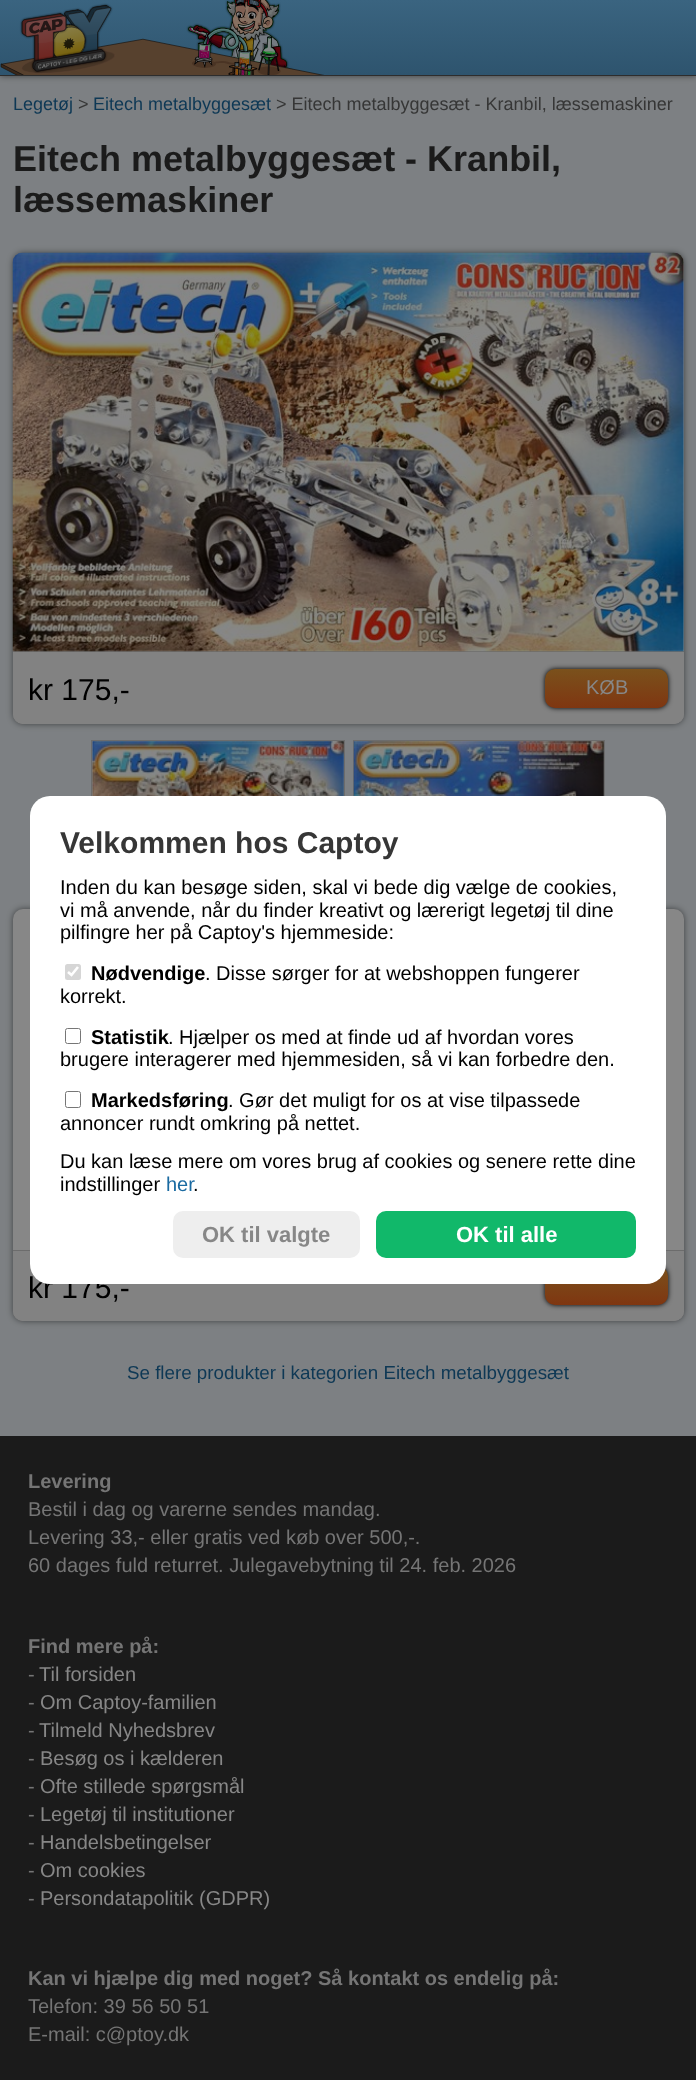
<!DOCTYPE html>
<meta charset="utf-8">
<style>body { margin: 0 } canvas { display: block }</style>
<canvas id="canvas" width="696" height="2080"></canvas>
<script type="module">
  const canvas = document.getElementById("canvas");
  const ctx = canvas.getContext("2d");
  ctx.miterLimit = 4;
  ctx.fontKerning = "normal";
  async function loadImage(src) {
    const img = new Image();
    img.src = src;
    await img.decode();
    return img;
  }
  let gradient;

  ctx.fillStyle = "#7d8083";
  ctx.fillRect(0, 0, 696, 2080);
  ctx.fillStyle = "rgba(0, 0, 0, 0.5)";
  ctx.filter = "blur(3px)";
  ctx.beginPath();
  ctx.rect(0, 0, 696, 76);
  ctx.fill();
  ctx.filter = "none";
  gradient = ctx.createLinearGradient(348, 75, 348, 0);
  gradient.addColorStop(0, "#2e546e");
  gradient.addColorStop(1, "#3a6480");
  ctx.fillStyle = gradient;
  ctx.fillRect(0, 0, 696, 75);
  ctx.fillStyle = "#2d2d2d";
  ctx.fillRect(0, 75, 696, 1);
  ctx.drawImage(await loadImage("img1.png"), 0, 0, 324, 75);
  ctx.font = "18px Liberation Sans";
  ctx.fillStyle = "#0e3855";
  ctx.fillText("Legetøj", 13, 110);
  ctx.fillStyle = "#363636";
  ctx.fillText(">", 78, 110);
  ctx.fillStyle = "#0e3855";
  ctx.fillText("Eitech metalbyggesæt", 93, 110);
  ctx.fillStyle = "#363636";
  ctx.fillText("> Eitech metalbyggesæt - Kranbil, læssemaskiner", 276, 110);
  ctx.font = "bold 36px Liberation Sans";
  ctx.fillStyle = "#1b1b1b";
  ctx.fillText("Eitech metalbyggesæt - Kranbil,", 13, 171);
  ctx.fillText("læssemaskiner", 13, 212);
  ctx.fillStyle = "rgba(0, 0, 0, 0.5)";
  ctx.filter = "blur(3px)";
  ctx.beginPath();
  ctx.roundRect(13, 253, 671, 471, 10);
  ctx.fill();
  ctx.filter = "none";
  ctx.fillStyle = "#878787";
  ctx.beginPath();
  ctx.roundRect(13, 253, 671, 471, 10);
  ctx.fill();
  ctx.fillStyle = "#828282";
  ctx.beginPath();
  ctx.roundRect(13, 651, 671, 73, [0, 0, 10, 10]);
  ctx.fill();
  ctx.fillStyle = "#6c6c6c";
  ctx.fillRect(13, 651, 671, 1);
  ctx.drawImage(await loadImage("img2.png"), 12, 252, 672, 400);
  ctx.font = "30px Liberation Sans";
  ctx.fillStyle = "#000000";
  ctx.fillText("kr 175,-", 28, 700);
  ctx.filter = "blur(2.5px)";
  ctx.beginPath();
  ctx.roundRect(545, 669, 123, 39, 10);
  ctx.fill();
  ctx.filter = "none";
  gradient = ctx.createLinearGradient(606, 708, 606, 669);
  gradient.addColorStop(0, "#7f3611");
  gradient.addColorStop(1, "#7a511c");
  ctx.fillStyle = gradient;
  ctx.beginPath();
  ctx.roundRect(545, 669, 123, 39, 10);
  ctx.fill();
  ctx.font = "20px Liberation Sans";
  ctx.fillStyle = "#878787";
  ctx.fillText("KØB", 586, 694);
  ctx.strokeStyle = "#6c6c6c";
  ctx.strokeRect(91.5, 740.5, 253, 152);
  ctx.drawImage(await loadImage("img3.png"), 92, 741, 252, 55);
  ctx.strokeRect(353.5, 740.5, 251, 152);
  ctx.drawImage(await loadImage("img4.png"), 353, 741, 251, 55);
  ctx.fillStyle = "rgba(0, 0, 0, 0.5)";
  ctx.filter = "blur(3px)";
  ctx.beginPath();
  ctx.roundRect(13, 909, 671, 412, 10);
  ctx.fill();
  ctx.filter = "none";
  ctx.fillStyle = "#878787";
  ctx.beginPath();
  ctx.roundRect(13, 909, 671, 412, 10);
  ctx.fill();
  ctx.fillStyle = "#828282";
  ctx.beginPath();
  ctx.roundRect(13, 1250, 671, 71, [0, 0, 10, 10]);
  ctx.fill();
  ctx.fillStyle = "#6c6c6c";
  ctx.fillRect(13, 1250, 671, 1);
  ctx.font = "30px Liberation Sans";
  ctx.fillStyle = "#000000";
  ctx.fillText("kr 175,-", 28, 1298);
  ctx.filter = "blur(2.5px)";
  ctx.beginPath();
  ctx.roundRect(545, 1266, 123, 39, 10);
  ctx.fill();
  ctx.filter = "none";
  gradient = ctx.createLinearGradient(606, 1305, 606, 1266);
  gradient.addColorStop(0, "#7f3611");
  gradient.addColorStop(1, "#7a511c");
  ctx.fillStyle = gradient;
  ctx.beginPath();
  ctx.roundRect(545, 1266, 123, 39, 10);
  ctx.fill();
  ctx.font = "18.75px Liberation Sans";
  ctx.fillStyle = "#0e3855";
  ctx.fillText("Se flere produkter i kategorien Eitech metalbyggesæt", 127, 1379);
  ctx.fillStyle = "#ffffff";
  ctx.beginPath();
  ctx.roundRect(30, 796, 636, 488, 20);
  ctx.fill();
  ctx.font = "bold 30px Liberation Sans";
  ctx.fillStyle = "#363636";
  ctx.fillText("Velkommen hos Captoy", 60, 853);
  ctx.font = "20px Liberation Sans";
  ctx.fillStyle = "#000000";
  ctx.fillText("Inden du kan besøge siden, skal vi bede dig vælge de cookies,", 60, 894);
  ctx.fillText("vi må anvende, når du finder kreativt og lærerigt legetøj til dine", 60, 917);
  ctx.fillText("pilfingre her på Captoy's hjemmeside:", 60, 939);
  ctx.fillStyle = "#d6d6d6";
  ctx.beginPath();
  ctx.roundRect(65, 964, 16, 16, 2.5);
  ctx.fill();
  ctx.beginPath();
  ctx.moveTo(68, 972);
  ctx.lineTo(71.5, 975);
  ctx.lineTo(78, 967);
  ctx.strokeStyle = "#ffffff";
  ctx.lineWidth = 2.6;
  ctx.stroke();
  ctx.font = "bold 20px Liberation Sans";
  ctx.fillStyle = "#000000";
  ctx.fillText("Nødvendige", 91, 980);
  ctx.font = "20px Liberation Sans";
  ctx.fillText(". Disse sørger for at webshoppen fungerer", 205, 980);
  ctx.fillText("korrekt.", 60, 1003);
  ctx.beginPath();
  ctx.roundRect(65.5, 1028.5, 15, 15, 2);
  ctx.strokeStyle = "#767676";
  ctx.lineWidth = 1;
  ctx.stroke();
  ctx.font = "bold 20px Liberation Sans";
  ctx.fillText("Statistik", 91, 1044);
  ctx.font = "20px Liberation Sans";
  ctx.fillText(". Hjælper os med at finde ud af hvordan vores", 168, 1044);
  ctx.fillText("brugere interagerer med hjemmesiden, så vi kan forbedre den.", 60, 1066);
  ctx.beginPath();
  ctx.roundRect(65.5, 1091.5, 15, 16, 2);
  ctx.stroke();
  ctx.font = "bold 20px Liberation Sans";
  ctx.fillText("Markedsføring", 91, 1107);
  ctx.font = "20px Liberation Sans";
  ctx.fillText(". Gør det muligt for os at vise tilpassede", 228, 1107);
  ctx.fillText("annoncer rundt omkring på nettet.", 60, 1130);
  ctx.fillText("Du kan læse mere om vores brug af cookies og senere rette dine", 60, 1168);
  ctx.fillText("indstillinger", 60, 1191);
  ctx.fillStyle = "#1a6aa1";
  ctx.fillText("her", 166, 1191);
  ctx.fillStyle = "#000000";
  ctx.fillText(".", 193, 1191);
  ctx.fillStyle = "#eeeeee";
  ctx.beginPath();
  ctx.roundRect(173, 1211, 187, 47, 10);
  ctx.fill();
  ctx.font = "bold 22px Liberation Sans";
  ctx.fillStyle = "#878787";
  ctx.fillText("OK til valgte", 202, 1242);
  ctx.fillStyle = "#11b86a";
  ctx.beginPath();
  ctx.roundRect(376, 1211, 260, 47, 10);
  ctx.fill();
  ctx.fillStyle = "#ffffff";
  ctx.fillText("OK til alle", 456, 1242);
  ctx.fillStyle = "#1b1b1b";
  ctx.fillRect(0, 1436, 696, 644);
  ctx.font = "bold 20px Liberation Sans";
  ctx.fillStyle = "#757575";
  ctx.fillText("Levering", 28, 1488);
  ctx.font = "20px Liberation Sans";
  ctx.fillText("Bestil i dag og varerne sendes mandag.", 28, 1516);
  ctx.fillText("Levering 33,- eller gratis ved køb over 500,-.", 28, 1544);
  ctx.fillText("60 dages fuld returret. Julegavebytning til 24. feb. 2026", 28, 1572);
  ctx.font = "bold 20px Liberation Sans";
  ctx.fillText("Find mere på:", 28, 1653);
  ctx.font = "20px Liberation Sans";
  ctx.fillText("-", 28, 1681);
  ctx.fillStyle = "#878787";
  ctx.fillText("Til forsiden", 39, 1681);
  ctx.fillStyle = "#757575";
  ctx.fillText("-", 28, 1709);
  ctx.fillStyle = "#878787";
  ctx.fillText("Om Captoy-familien", 40, 1709);
  ctx.fillStyle = "#757575";
  ctx.fillText("-", 28, 1737);
  ctx.fillStyle = "#878787";
  ctx.fillText("Tilmeld Nyhedsbrev", 39, 1737);
  ctx.fillStyle = "#757575";
  ctx.fillText("-", 28, 1765);
  ctx.fillStyle = "#878787";
  ctx.fillText("Besøg os i kælderen", 40, 1765);
  ctx.fillStyle = "#757575";
  ctx.fillText("-", 28, 1793);
  ctx.fillStyle = "#878787";
  ctx.fillText("Ofte stillede spørgsmål", 40, 1793);
  ctx.fillStyle = "#757575";
  ctx.fillText("-", 28, 1821);
  ctx.fillStyle = "#878787";
  ctx.fillText("Legetøj til institutioner", 40, 1821);
  ctx.fillStyle = "#757575";
  ctx.fillText("-", 28, 1849);
  ctx.fillStyle = "#878787";
  ctx.fillText("Handelsbetingelser", 40, 1849);
  ctx.fillStyle = "#757575";
  ctx.fillText("-", 28, 1877);
  ctx.fillStyle = "#878787";
  ctx.fillText("Om cookies", 40, 1877);
  ctx.fillStyle = "#757575";
  ctx.fillText("-", 28, 1905);
  ctx.fillStyle = "#878787";
  ctx.fillText("Persondatapolitik (GDPR)", 40, 1905);
  ctx.font = "bold 20px Liberation Sans";
  ctx.fillStyle = "#757575";
  ctx.fillText("Kan vi hjælpe dig med noget? Så kontakt os endelig på:", 28, 1985);
  ctx.font = "20px Liberation Sans";
  ctx.fillText("Telefon: 39 56 50 51", 28, 2013);
  ctx.fillText("E-mail: c@ptoy.dk", 28, 2041);
</script>
